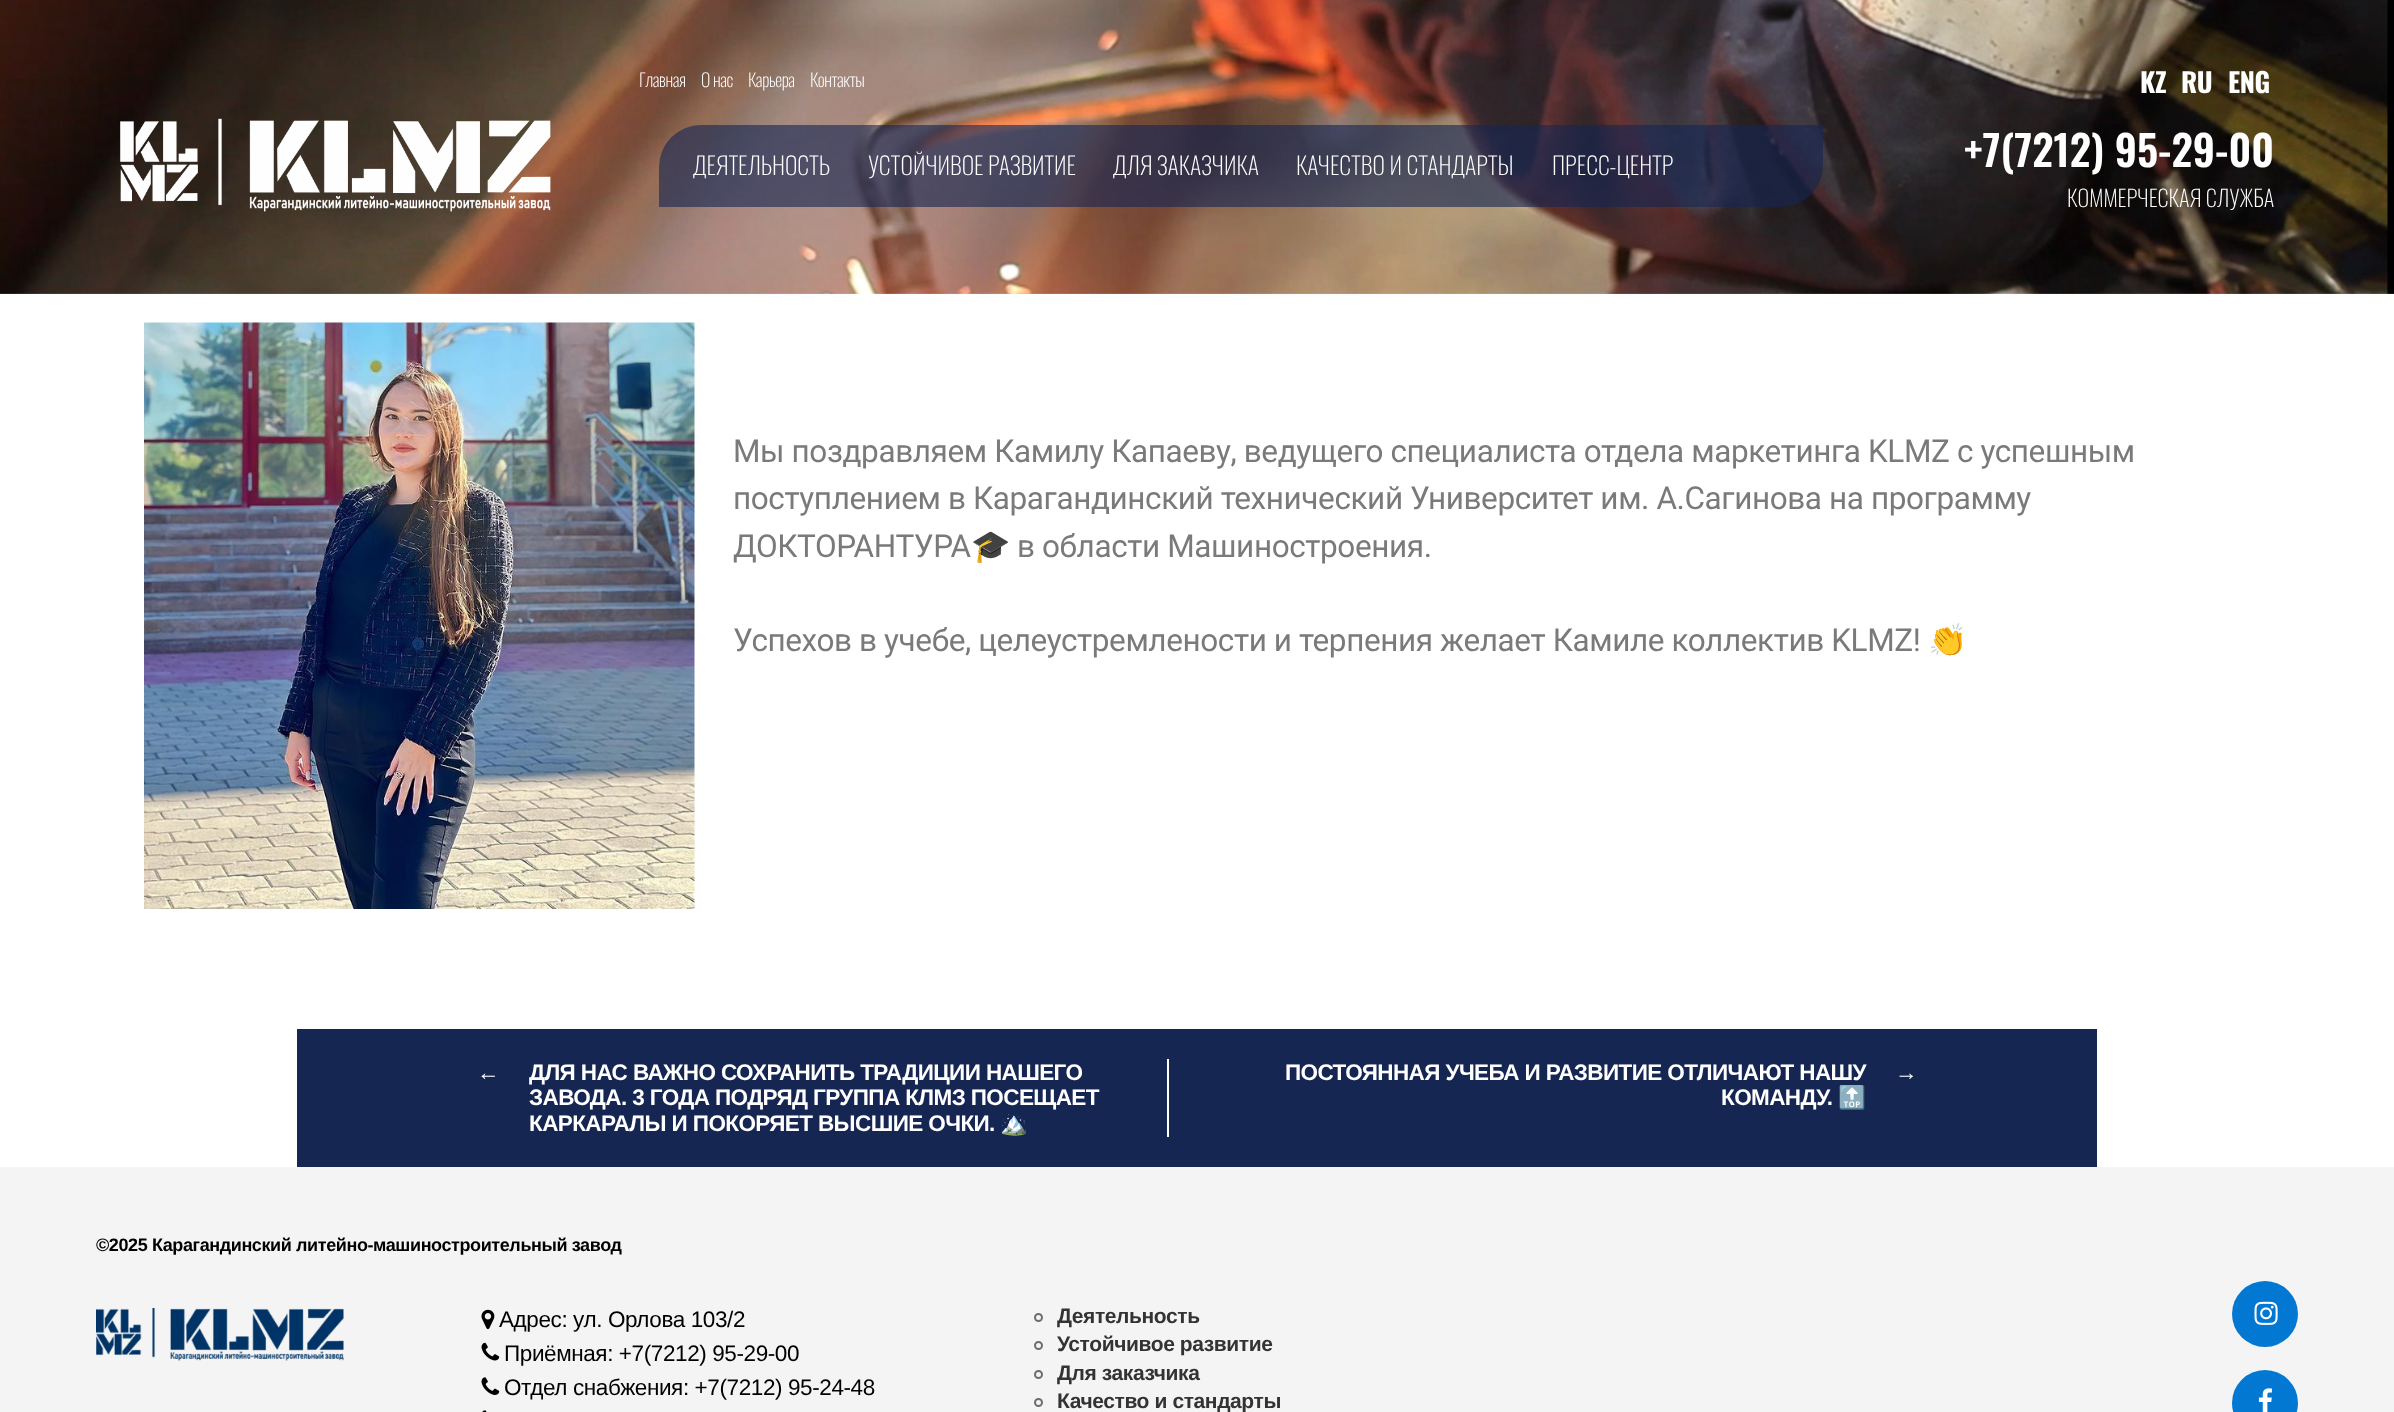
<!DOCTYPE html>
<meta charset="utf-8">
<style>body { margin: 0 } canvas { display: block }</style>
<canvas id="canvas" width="2394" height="1412"></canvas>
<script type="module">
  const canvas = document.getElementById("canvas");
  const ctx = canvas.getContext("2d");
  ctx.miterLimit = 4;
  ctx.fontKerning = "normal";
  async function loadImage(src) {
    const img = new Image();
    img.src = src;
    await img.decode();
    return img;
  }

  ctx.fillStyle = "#ffffff";
  ctx.fillRect(0, 0, 2394, 1412);
  ctx.drawImage(await loadImage("img1.png"), 0, 0, 2394, 294);
  ctx.letterSpacing = "-0.4px";
  ctx.font = "200 18px Oswald";
  ctx.fillText("Главная", 639, 87);
  ctx.fillText("О нас", 701, 87);
  ctx.fillText("Карьера", 748, 87);
  ctx.fillText("Контакты", 810, 87);
  ctx.font = "bold 27px Oswald";
  ctx.fillText("KZ", 2140, 93);
  ctx.fillText("RU", 2181, 93);
  ctx.fillText("ENG", 2228, 93);
  ctx.drawImage(await loadImage("img2.png"), 120, 118, 431, 94);
  ctx.fillStyle = "rgba(22, 38, 83, 0.61)";
  ctx.beginPath();
  ctx.roundRect(659, 125, 1164, 82, [42, 0, 42, 0]);
  ctx.fill();
  ctx.letterSpacing = "0px";
  ctx.font = "200 24px Oswald";
  ctx.fillStyle = "#ffffff";
  ctx.fillText("ДЕЯТЕЛЬНОСТЬ", 693, 175);
  ctx.fillText("УСТОЙЧИВОЕ РАЗВИТИЕ", 868, 175);
  ctx.fillText("ДЛЯ ЗАКАЗЧИКА", 1113, 175);
  ctx.fillText("КАЧЕСТВО И СТАНДАРТЫ", 1296, 175);
  ctx.fillText("ПРЕСС-ЦЕНТР", 1552, 175);
  ctx.font = "600 42px Oswald";
  ctx.fillText("+7(7212) 95-29-00", 1964, 167);
  ctx.font = "200 22.5px Oswald";
  ctx.fillText("КОММЕРЧЕСКАЯ СЛУЖБА", 2067, 207);
  ctx.drawImage(await loadImage("img3.png"), 144, 322, 551, 587);
  ctx.letterSpacing = "-0.4px";
  ctx.font = "31.5px Roboto";
  ctx.fillStyle = "#7a7a7a";
  ctx.fillText("Мы поздравляем Камилу Капаеву, ведущего специалиста отдела маркетинга KLMZ с успешным", 733, 462);
  ctx.fillText("поступлением в Карагандинский технический Университет им. А.Сагинова на программу", 733, 509);
  ctx.fillText("ДОКТОРАНТУРА", 733, 557);
  ctx.font = "31.5px Noto Color Emoji";
  ctx.fillText("🎓", 971, 557);
  ctx.font = "31.5px Roboto";
  ctx.fillText("в области Машиностроения.", 1017, 557);
  ctx.fillText("Успехов в учебе, целеустремлености и терпения желает Камиле коллектив KLMZ!", 733, 651);
  ctx.font = "31.5px Noto Color Emoji";
  ctx.fillText("👏", 1928, 651);
  ctx.fillStyle = "#162653";
  ctx.fillRect(297, 1029, 1800, 138);
  ctx.fillStyle = "#ffffff";
  ctx.fillRect(1167, 1059, 2, 78);
  ctx.letterSpacing = "-0.6px";
  ctx.font = "bold 22.5px Liberation Sans";
  ctx.fillText("←", 477, 1080);
  ctx.fillText("ДЛЯ НАС ВАЖНО СОХРАНИТЬ ТРАДИЦИИ НАШЕГО", 529, 1080);
  ctx.fillText("ЗАВОДА. 3 ГОДА ПОДРЯД ГРУППА КЛМЗ ПОСЕЩАЕТ", 529, 1105);
  ctx.fillText("КАРКАРАЛЫ И ПОКОРЯЕТ ВЫСШИЕ ОЧКИ.", 529, 1131);
  ctx.font = "bold 22.5px Noto Color Emoji";
  ctx.fillText("🏔️", 1000, 1131);
  ctx.font = "bold 22.5px Liberation Sans";
  ctx.fillText("ПОСТОЯННАЯ УЧЕБА И РАЗВИТИЕ ОТЛИЧАЮТ НАШУ", 1285, 1080);
  ctx.fillText("КОМАНДУ.", 1721, 1105);
  ctx.font = "bold 22.5px Noto Color Emoji";
  ctx.fillText("🔝", 1838, 1105);
  ctx.font = "bold 22.5px Liberation Sans";
  ctx.fillText("→", 1895, 1080);
  ctx.fillStyle = "#f4f4f4";
  ctx.fillRect(0, 1167, 2394, 245);
  ctx.letterSpacing = "-0.4px";
  ctx.font = "bold 18px Liberation Sans";
  ctx.fillStyle = "#000000";
  ctx.fillText("©2025 Карагандинский литейно-машиностроительный завод", 96, 1251);
  ctx.drawImage(await loadImage("img4.png"), 96, 1308, 248, 53);
  ctx.drawImage(await loadImage("img5.png"), 481, 1309, 14, 21);
  ctx.font = "22.5px Liberation Sans";
  ctx.fillText("Адрес: ул. Орлова 103/2", 499, 1327);
  ctx.drawImage(await loadImage("img6.png"), 481, 1342, 19, 19);
  ctx.fillText("Приёмная: +7(7212) 95-29-00", 504, 1361);
  ctx.drawImage(await loadImage("img7.png"), 481, 1377, 19, 18);
  ctx.fillText("Отдел снабжения: +7(7212) 95-24-48", 504, 1395);
  ctx.drawImage(await loadImage("img8.png"), 482, 1410, 5, 2);
  ctx.beginPath();
  ctx.arc(1038.5, 1317.5, 3.5, 0, Math.PI * 2);
  ctx.strokeStyle = "#6d6d6d";
  ctx.lineWidth = 2;
  ctx.stroke();
  ctx.font = "bold 21px Liberation Sans";
  ctx.fillStyle = "#333333";
  ctx.fillText("Деятельность", 1057, 1323);
  ctx.beginPath();
  ctx.arc(1038.5, 1345.5, 3.5, 0, Math.PI * 2);
  ctx.stroke();
  ctx.fillText("Устойчивое развитие", 1057, 1351);
  ctx.beginPath();
  ctx.arc(1038.5, 1374.5, 3.5, 0, Math.PI * 2);
  ctx.stroke();
  ctx.fillText("Для заказчика", 1057, 1380);
  ctx.beginPath();
  ctx.arc(1038.5, 1402.5, 3.5, 0, Math.PI * 2);
  ctx.stroke();
  ctx.fillText("Качество и стандарты", 1057, 1408);
  ctx.fillStyle = "#0378d2";
  ctx.beginPath();
  ctx.arc(2265, 1314, 33, 0, Math.PI * 2);
  ctx.fill();
  ctx.drawImage(await loadImage("img9.png"), 2254, 1301, 24, 24);
  ctx.beginPath();
  ctx.arc(2265, 1403, 33, 0, Math.PI * 2);
  ctx.fill();
  ctx.drawImage(await loadImage("img10.png"), 2258, 1388, 14, 24);
</script>
